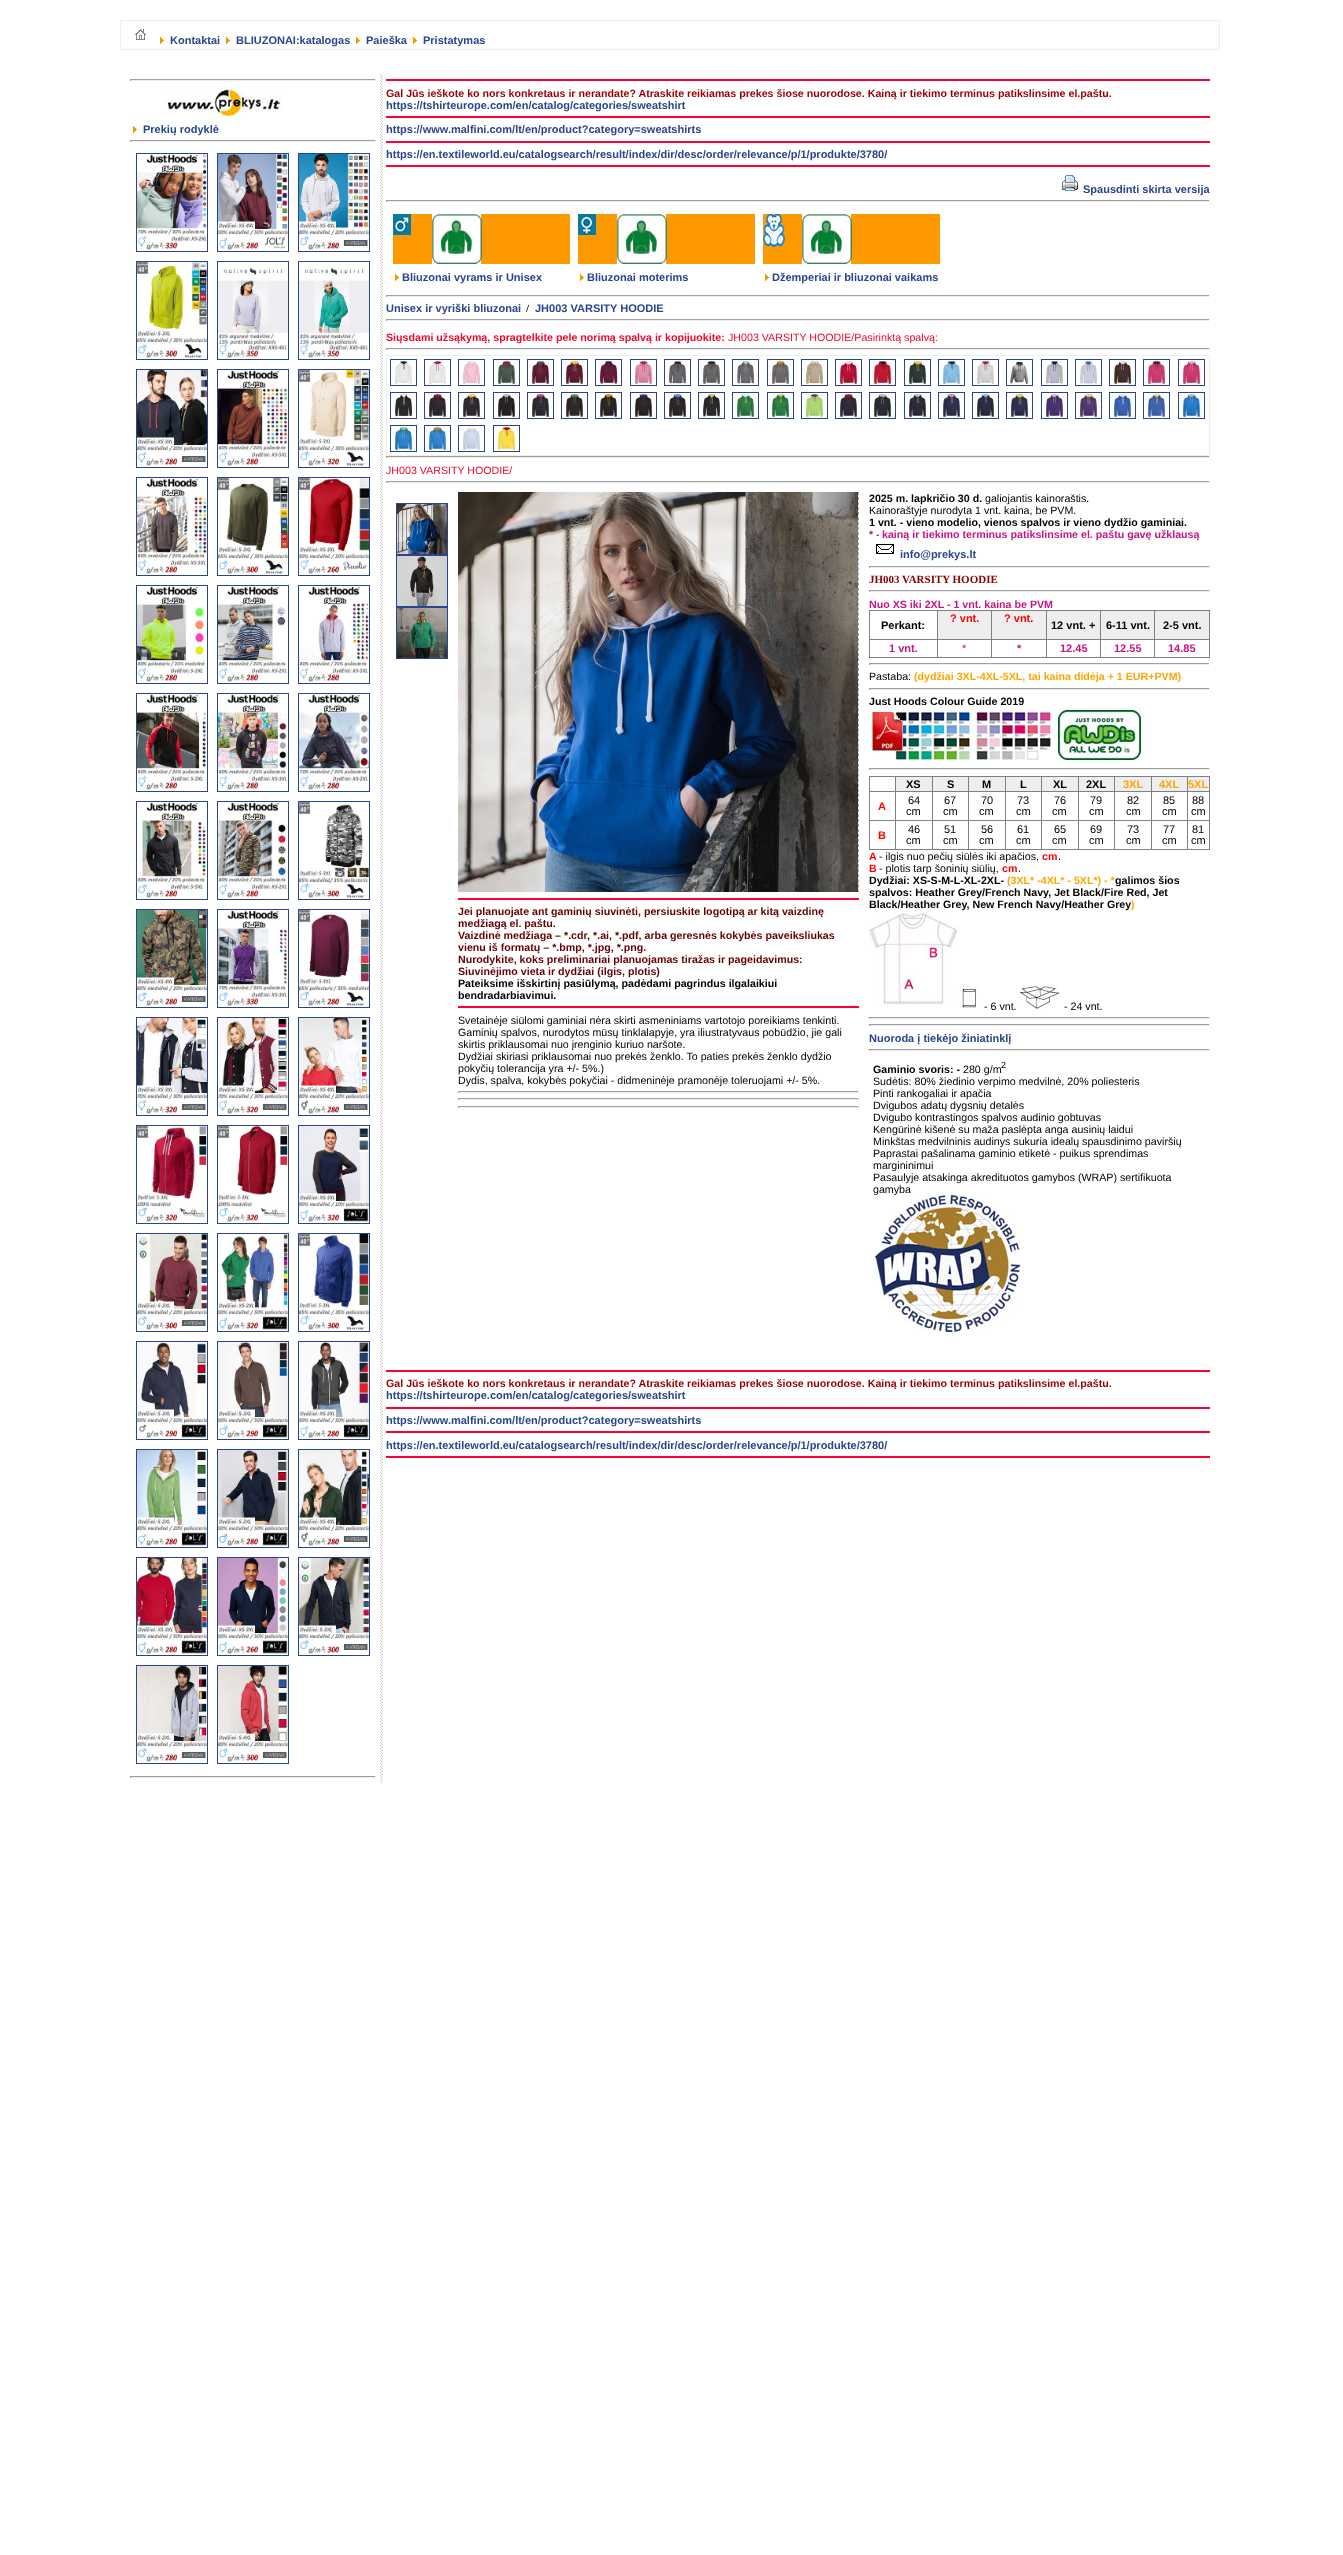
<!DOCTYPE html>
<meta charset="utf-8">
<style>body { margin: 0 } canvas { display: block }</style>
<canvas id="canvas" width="1343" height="2555"></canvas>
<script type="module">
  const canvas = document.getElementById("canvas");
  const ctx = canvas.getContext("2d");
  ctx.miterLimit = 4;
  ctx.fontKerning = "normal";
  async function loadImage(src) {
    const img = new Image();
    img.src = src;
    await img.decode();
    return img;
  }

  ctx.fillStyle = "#ffffff";
  ctx.fillRect(0, 0, 1343, 2555);
  ctx.strokeStyle = "#eeeeee";
  ctx.strokeRect(120.5, 20.5, 1099, 29);
  ctx.drawImage(await loadImage("img1.png"), 135, 29, 11, 11);
  ctx.drawImage(await loadImage("img2.png"), 160, 37, 4, 7);
  ctx.font = "bold 11px Liberation Sans";
  ctx.fillStyle = "#2a458c";
  ctx.fillText("Kontaktai", 170, 44);
  ctx.drawImage(await loadImage("img2.png"), 226, 37, 4, 7);
  ctx.fillText("BLIUZONAI:katalogas", 236, 44);
  ctx.drawImage(await loadImage("img2.png"), 356, 37, 4, 7);
  ctx.fillText("Paieška", 366, 44);
  ctx.drawImage(await loadImage("img2.png"), 413, 37, 4, 7);
  ctx.fillText("Pristatymas", 423, 44);
  ctx.fillStyle = "#9f9f9f";
  ctx.fillRect(130, 79, 246, 1);
  ctx.fillStyle = "#eeeeee";
  ctx.fillRect(375, 79, 1, 2);
  ctx.fillRect(130, 80, 246, 1);
  ctx.fillStyle = "#9f9f9f";
  ctx.fillRect(130, 79, 1, 2);
  ctx.drawImage(await loadImage("img3.png"), 162, 87, 120, 32);
  ctx.drawImage(await loadImage("img2.png"), 133, 126, 4, 7);
  ctx.fillStyle = "#2a458c";
  ctx.fillText("Prekių rodyklė", 143, 133);
  ctx.fillStyle = "#9f9f9f";
  ctx.fillRect(130, 140, 246, 1);
  ctx.fillStyle = "#eeeeee";
  ctx.fillRect(375, 140, 1, 2);
  ctx.fillRect(130, 141, 246, 1);
  ctx.fillStyle = "#9f9f9f";
  ctx.fillRect(130, 140, 1, 2);
  ctx.strokeStyle = "#2a458c";
  ctx.strokeRect(136.5, 153.5, 71, 98);
  ctx.drawImage(await loadImage("img4.png"), 137, 154, 70, 96);
  ctx.strokeRect(217.5, 153.5, 71, 98);
  ctx.drawImage(await loadImage("img5.png"), 218, 154, 70, 96);
  ctx.strokeRect(298.5, 153.5, 71, 98);
  ctx.drawImage(await loadImage("img6.png"), 299, 154, 70, 96);
  ctx.strokeRect(136.5, 261.5, 71, 98);
  ctx.drawImage(await loadImage("img7.png"), 137, 262, 70, 96);
  ctx.strokeRect(217.5, 261.5, 71, 98);
  ctx.drawImage(await loadImage("img8.png"), 218, 268, 70, 90);
  ctx.strokeRect(298.5, 261.5, 71, 98);
  ctx.drawImage(await loadImage("img9.png"), 299, 268, 70, 90);
  ctx.strokeRect(136.5, 369.5, 71, 98);
  ctx.drawImage(await loadImage("img10.png"), 137, 370, 70, 96);
  ctx.strokeRect(217.5, 369.5, 71, 98);
  ctx.drawImage(await loadImage("img11.png"), 218, 370, 70, 96);
  ctx.strokeRect(298.5, 369.5, 71, 98);
  ctx.drawImage(await loadImage("img12.png"), 299, 370, 70, 96);
  ctx.strokeRect(136.5, 477.5, 71, 98);
  ctx.drawImage(await loadImage("img13.png"), 137, 478, 70, 96);
  ctx.strokeRect(217.5, 477.5, 71, 98);
  ctx.drawImage(await loadImage("img14.png"), 218, 478, 70, 96);
  ctx.strokeRect(298.5, 477.5, 71, 98);
  ctx.drawImage(await loadImage("img15.png"), 299, 478, 70, 96);
  ctx.strokeRect(136.5, 585.5, 71, 98);
  ctx.drawImage(await loadImage("img16.png"), 137, 586, 68, 96);
  ctx.strokeRect(217.5, 585.5, 71, 98);
  ctx.drawImage(await loadImage("img17.png"), 218, 586, 70, 96);
  ctx.strokeRect(298.5, 585.5, 71, 98);
  ctx.drawImage(await loadImage("img18.png"), 299, 586, 70, 96);
  ctx.strokeRect(136.5, 693.5, 71, 98);
  ctx.drawImage(await loadImage("img19.png"), 137, 694, 70, 96);
  ctx.strokeRect(217.5, 693.5, 71, 98);
  ctx.drawImage(await loadImage("img20.png"), 218, 694, 70, 96);
  ctx.strokeRect(298.5, 693.5, 71, 98);
  ctx.drawImage(await loadImage("img21.png"), 299, 694, 70, 96);
  ctx.strokeRect(136.5, 801.5, 71, 98);
  ctx.drawImage(await loadImage("img22.png"), 137, 802, 70, 96);
  ctx.strokeRect(217.5, 801.5, 71, 98);
  ctx.drawImage(await loadImage("img23.png"), 218, 802, 70, 96);
  ctx.strokeRect(298.5, 801.5, 71, 98);
  ctx.drawImage(await loadImage("img24.png"), 299, 802, 70, 96);
  ctx.strokeRect(136.5, 909.5, 71, 98);
  ctx.drawImage(await loadImage("img25.png"), 137, 910, 70, 96);
  ctx.strokeRect(217.5, 909.5, 71, 98);
  ctx.drawImage(await loadImage("img26.png"), 218, 910, 70, 96);
  ctx.strokeRect(298.5, 909.5, 71, 98);
  ctx.drawImage(await loadImage("img27.png"), 299, 910, 70, 96);
  ctx.strokeRect(136.5, 1017.5, 71, 98);
  ctx.drawImage(await loadImage("img28.png"), 137, 1018, 70, 96);
  ctx.strokeRect(217.5, 1017.5, 71, 98);
  ctx.drawImage(await loadImage("img29.png"), 218, 1018, 70, 96);
  ctx.strokeRect(298.5, 1017.5, 71, 98);
  ctx.drawImage(await loadImage("img30.png"), 299, 1018, 70, 96);
  ctx.strokeRect(136.5, 1125.5, 71, 98);
  ctx.drawImage(await loadImage("img31.png"), 137, 1126, 70, 96);
  ctx.strokeRect(217.5, 1125.5, 71, 98);
  ctx.drawImage(await loadImage("img32.png"), 218, 1126, 70, 96);
  ctx.strokeRect(298.5, 1125.5, 71, 98);
  ctx.drawImage(await loadImage("img33.png"), 299, 1126, 70, 96);
  ctx.strokeRect(136.5, 1233.5, 71, 98);
  ctx.drawImage(await loadImage("img34.png"), 137, 1234, 70, 96);
  ctx.strokeRect(217.5, 1233.5, 71, 98);
  ctx.drawImage(await loadImage("img35.png"), 218, 1234, 70, 96);
  ctx.strokeRect(298.5, 1233.5, 71, 98);
  ctx.drawImage(await loadImage("img36.png"), 299, 1234, 70, 96);
  ctx.strokeRect(136.5, 1341.5, 71, 98);
  ctx.drawImage(await loadImage("img37.png"), 137, 1342, 70, 96);
  ctx.strokeRect(217.5, 1341.5, 71, 98);
  ctx.drawImage(await loadImage("img38.png"), 218, 1342, 70, 96);
  ctx.strokeRect(298.5, 1341.5, 71, 98);
  ctx.drawImage(await loadImage("img39.png"), 299, 1342, 70, 96);
  ctx.strokeRect(136.5, 1449.5, 71, 98);
  ctx.drawImage(await loadImage("img40.png"), 137, 1450, 70, 96);
  ctx.strokeRect(217.5, 1449.5, 71, 98);
  ctx.drawImage(await loadImage("img41.png"), 218, 1450, 70, 96);
  ctx.strokeRect(298.5, 1449.5, 71, 98);
  ctx.drawImage(await loadImage("img42.png"), 299, 1450, 70, 96);
  ctx.strokeRect(136.5, 1557.5, 71, 98);
  ctx.drawImage(await loadImage("img43.png"), 137, 1558, 70, 96);
  ctx.strokeRect(217.5, 1557.5, 71, 98);
  ctx.drawImage(await loadImage("img44.png"), 218, 1558, 70, 96);
  ctx.strokeRect(298.5, 1557.5, 71, 98);
  ctx.drawImage(await loadImage("img45.png"), 299, 1558, 70, 96);
  ctx.strokeRect(136.5, 1665.5, 71, 98);
  ctx.drawImage(await loadImage("img46.png"), 137, 1666, 70, 96);
  ctx.strokeRect(217.5, 1665.5, 71, 98);
  ctx.drawImage(await loadImage("img47.png"), 218, 1666, 70, 96);
  ctx.fillRect(130, 1776, 246, 1);
  ctx.fillStyle = "#eeeeee";
  ctx.fillRect(375, 1776, 1, 2);
  ctx.fillRect(130, 1777, 246, 1);
  ctx.fillStyle = "#9f9f9f";
  ctx.fillRect(130, 1776, 1, 2);
  ctx.drawImage(await loadImage("img48.png"), 380, 74, 3, 1709);
  ctx.fillStyle = "#ff0033";
  ctx.fillRect(386, 79, 824, 2);
  ctx.font = "bold 10.67px Liberation Sans";
  ctx.fillStyle = "#990000";
  ctx.fillText("Gal Jūs ieškote ko nors konkretaus ir nerandate? Atraskite reikiamas prekes šiose nuorodose. Kainą ir tiekimo terminus patikslinsime el.paštu.", 386, 97);
  ctx.font = "bold 11px Liberation Sans";
  ctx.fillStyle = "#2a458c";
  ctx.fillText("https://tshirteurope.com/en/catalog/categories/sweatshirt", 386, 109);
  ctx.fillStyle = "#ff0033";
  ctx.fillRect(386, 116, 824, 2);
  ctx.fillStyle = "#2a458c";
  ctx.fillText("https://www.malfini.com/lt/en/product?category=sweatshirts", 386, 133);
  ctx.fillStyle = "#ff0033";
  ctx.fillRect(386, 141, 824, 2);
  ctx.fillStyle = "#2a458c";
  ctx.fillText("https://en.textileworld.eu/catalogsearch/result/index/dir/desc/order/relevance/p/1/produkte/3780/", 386, 158);
  ctx.fillStyle = "#ff0033";
  ctx.fillRect(386, 165, 824, 2);
  ctx.drawImage(await loadImage("img49.png"), 1062, 175, 16, 16);
  ctx.fillStyle = "#2a458c";
  ctx.fillText("Spausdinti skirta versija", 1083, 193);
  ctx.fillStyle = "#9f9f9f";
  ctx.fillRect(386, 200, 824, 1);
  ctx.fillStyle = "#eeeeee";
  ctx.fillRect(1209, 200, 1, 2);
  ctx.fillRect(386, 201, 824, 1);
  ctx.fillStyle = "#9f9f9f";
  ctx.fillRect(386, 200, 1, 2);
  ctx.drawImage(await loadImage("img50.png"), 393, 214, 177, 50);
  ctx.drawImage(await loadImage("img51.png"), 578, 214, 177, 50);
  ctx.drawImage(await loadImage("img52.png"), 763, 214, 177, 50);
  ctx.drawImage(await loadImage("img2.png"), 395, 274, 4, 7);
  ctx.fillStyle = "#2a458c";
  ctx.fillText("Bliuzonai vyrams ir Unisex", 402, 281);
  ctx.drawImage(await loadImage("img2.png"), 580, 274, 4, 7);
  ctx.fillText("Bliuzonai moterims", 587, 281);
  ctx.drawImage(await loadImage("img2.png"), 765, 274, 4, 7);
  ctx.fillText("Džemperiai ir bliuzonai vaikams", 772, 281);
  ctx.fillStyle = "#9f9f9f";
  ctx.fillRect(386, 295, 824, 1);
  ctx.fillStyle = "#eeeeee";
  ctx.fillRect(1209, 295, 1, 2);
  ctx.fillRect(386, 296, 824, 1);
  ctx.fillStyle = "#9f9f9f";
  ctx.fillRect(386, 295, 1, 2);
  ctx.fillStyle = "#2a458c";
  ctx.fillText("Unisex ir vyriški bliuzonai", 386, 312);
  ctx.font = "bold 11px Liberation Serif";
  ctx.fillStyle = "#000000";
  ctx.fillText("/", 526, 312);
  ctx.font = "bold 11px Liberation Sans";
  ctx.fillStyle = "#2a458c";
  ctx.fillText("JH003 VARSITY HOODIE", 535, 312);
  ctx.fillStyle = "#9f9f9f";
  ctx.fillRect(386, 319, 824, 1);
  ctx.fillStyle = "#eeeeee";
  ctx.fillRect(1209, 319, 1, 2);
  ctx.fillRect(386, 320, 824, 1);
  ctx.fillStyle = "#9f9f9f";
  ctx.fillRect(386, 319, 1, 2);
  ctx.font = "bold 10.67px Liberation Sans";
  ctx.fillStyle = "#f0082e";
  ctx.fillText("Siųsdami užsąkymą, spragtelkite pele norimą spalvą ir kopijuokite:", 386, 341);
  ctx.font = "10.67px Liberation Sans";
  ctx.fillText("JH003 VARSITY HOODIE/Pasirinktą spalvą:", 728, 341);
  ctx.fillStyle = "#9f9f9f";
  ctx.fillRect(386, 348, 824, 1);
  ctx.fillStyle = "#eeeeee";
  ctx.fillRect(1209, 348, 1, 2);
  ctx.fillRect(386, 349, 824, 1);
  ctx.fillStyle = "#9f9f9f";
  ctx.fillRect(386, 348, 1, 2);
  ctx.strokeStyle = "#eeeeee";
  ctx.strokeRect(386.5, 355.5, 823, 100);
  ctx.strokeStyle = "#2a458c";
  ctx.strokeRect(390.5, 359.5, 26, 26);
  ctx.drawImage(await loadImage("img53.png"), 395, 360, 17, 24);
  ctx.strokeRect(424.5, 359.5, 26, 26);
  ctx.drawImage(await loadImage("img54.png"), 425, 360, 21, 24);
  ctx.strokeRect(458.5, 359.5, 26, 26);
  ctx.drawImage(await loadImage("img55.png"), 459, 360, 24, 25);
  ctx.strokeRect(493.5, 359.5, 26, 26);
  ctx.drawImage(await loadImage("img56.png"), 494, 360, 24, 24);
  ctx.strokeRect(527.5, 359.5, 26, 26);
  ctx.drawImage(await loadImage("img57.png"), 529, 360, 23, 25);
  ctx.strokeRect(561.5, 359.5, 26, 26);
  ctx.drawImage(await loadImage("img58.png"), 562, 360, 24, 25);
  ctx.strokeRect(595.5, 359.5, 26, 26);
  ctx.drawImage(await loadImage("img59.png"), 596, 360, 24, 24);
  ctx.strokeRect(630.5, 359.5, 26, 26);
  ctx.drawImage(await loadImage("img60.png"), 631, 360, 24, 25);
  ctx.strokeRect(664.5, 359.5, 26, 26);
  ctx.drawImage(await loadImage("img61.png"), 665, 360, 24, 24);
  ctx.strokeRect(698.5, 359.5, 26, 26);
  ctx.drawImage(await loadImage("img62.png"), 699, 360, 24, 24);
  ctx.strokeRect(732.5, 359.5, 26, 26);
  ctx.drawImage(await loadImage("img63.png"), 734, 360, 22, 24);
  ctx.strokeRect(767.5, 359.5, 26, 26);
  ctx.drawImage(await loadImage("img64.png"), 768, 360, 23, 24);
  ctx.strokeRect(801.5, 359.5, 26, 26);
  ctx.drawImage(await loadImage("img65.png"), 802, 360, 24, 25);
  ctx.strokeRect(835.5, 359.5, 26, 26);
  ctx.drawImage(await loadImage("img66.png"), 836, 360, 25, 25);
  ctx.strokeRect(869.5, 359.5, 26, 26);
  ctx.drawImage(await loadImage("img67.png"), 870, 360, 25, 25);
  ctx.strokeRect(904.5, 359.5, 26, 26);
  ctx.drawImage(await loadImage("img68.png"), 905, 360, 22, 24);
  ctx.strokeRect(938.5, 359.5, 26, 26);
  ctx.drawImage(await loadImage("img69.png"), 939, 360, 24, 25);
  ctx.strokeRect(972.5, 359.5, 26, 26);
  ctx.drawImage(await loadImage("img70.png"), 973, 360, 21, 24);
  ctx.strokeRect(1006.5, 359.5, 26, 26);
  ctx.drawImage(await loadImage("img71.png"), 1007, 360, 23, 24);
  ctx.strokeRect(1041.5, 359.5, 26, 26);
  ctx.drawImage(await loadImage("img72.png"), 1042, 360, 24, 24);
  ctx.strokeRect(1075.5, 359.5, 26, 26);
  ctx.drawImage(await loadImage("img73.png"), 1076, 360, 22, 24);
  ctx.strokeRect(1109.5, 359.5, 26, 26);
  ctx.drawImage(await loadImage("img74.png"), 1111, 360, 23, 24);
  ctx.strokeRect(1143.5, 359.5, 26, 26);
  ctx.drawImage(await loadImage("img75.png"), 1144, 360, 24, 25);
  ctx.strokeRect(1178.5, 359.5, 26, 26);
  ctx.drawImage(await loadImage("img76.png"), 1179, 360, 24, 25);
  ctx.strokeRect(390.5, 392.5, 26, 26);
  ctx.drawImage(await loadImage("img77.png"), 391, 393, 23, 24);
  ctx.strokeRect(424.5, 392.5, 26, 26);
  ctx.drawImage(await loadImage("img78.png"), 425, 393, 24, 24);
  ctx.strokeRect(458.5, 392.5, 26, 26);
  ctx.drawImage(await loadImage("img79.png"), 459, 393, 24, 24);
  ctx.strokeRect(493.5, 392.5, 26, 26);
  ctx.drawImage(await loadImage("img80.png"), 495, 393, 23, 24);
  ctx.strokeRect(527.5, 392.5, 26, 26);
  ctx.drawImage(await loadImage("img81.png"), 528, 393, 23, 24);
  ctx.strokeRect(561.5, 392.5, 26, 26);
  ctx.drawImage(await loadImage("img82.png"), 562, 393, 24, 24);
  ctx.strokeRect(595.5, 392.5, 26, 26);
  ctx.drawImage(await loadImage("img83.png"), 596, 393, 24, 24);
  ctx.strokeRect(630.5, 392.5, 26, 26);
  ctx.drawImage(await loadImage("img84.png"), 631, 393, 24, 24);
  ctx.strokeRect(664.5, 392.5, 26, 26);
  ctx.drawImage(await loadImage("img85.png"), 665, 393, 24, 24);
  ctx.strokeRect(698.5, 392.5, 26, 26);
  ctx.drawImage(await loadImage("img86.png"), 699, 393, 24, 24);
  ctx.strokeRect(732.5, 392.5, 26, 26);
  ctx.drawImage(await loadImage("img87.png"), 733, 393, 24, 25);
  ctx.strokeRect(767.5, 392.5, 26, 26);
  ctx.drawImage(await loadImage("img88.png"), 768, 393, 25, 25);
  ctx.strokeRect(801.5, 392.5, 26, 26);
  ctx.drawImage(await loadImage("img89.png"), 802, 393, 25, 25);
  ctx.strokeRect(835.5, 392.5, 26, 26);
  ctx.drawImage(await loadImage("img90.png"), 836, 393, 24, 24);
  ctx.strokeRect(869.5, 392.5, 26, 26);
  ctx.drawImage(await loadImage("img91.png"), 870, 393, 22, 24);
  ctx.strokeRect(904.5, 392.5, 26, 26);
  ctx.drawImage(await loadImage("img92.png"), 905, 393, 24, 24);
  ctx.strokeRect(938.5, 392.5, 26, 26);
  ctx.drawImage(await loadImage("img93.png"), 939, 393, 24, 24);
  ctx.strokeRect(972.5, 392.5, 26, 26);
  ctx.drawImage(await loadImage("img94.png"), 973, 393, 24, 24);
  ctx.strokeRect(1006.5, 392.5, 26, 26);
  ctx.drawImage(await loadImage("img95.png"), 1007, 393, 24, 24);
  ctx.strokeRect(1041.5, 392.5, 26, 26);
  ctx.drawImage(await loadImage("img96.png"), 1042, 393, 24, 24);
  ctx.strokeRect(1075.5, 392.5, 26, 26);
  ctx.drawImage(await loadImage("img97.png"), 1076, 393, 24, 24);
  ctx.strokeRect(1109.5, 392.5, 26, 26);
  ctx.drawImage(await loadImage("img98.png"), 1110, 393, 24, 25);
  ctx.strokeRect(1143.5, 392.5, 26, 26);
  ctx.drawImage(await loadImage("img99.png"), 1144, 393, 24, 25);
  ctx.strokeRect(1178.5, 392.5, 26, 26);
  ctx.drawImage(await loadImage("img100.png"), 1179, 393, 25, 25);
  ctx.strokeRect(390.5, 425.5, 26, 26);
  ctx.drawImage(await loadImage("img101.png"), 391, 426, 25, 25);
  ctx.strokeRect(424.5, 425.5, 26, 26);
  ctx.drawImage(await loadImage("img102.png"), 425, 426, 25, 25);
  ctx.strokeRect(458.5, 425.5, 26, 26);
  ctx.drawImage(await loadImage("img103.png"), 460, 426, 23, 24);
  ctx.strokeRect(493.5, 425.5, 26, 26);
  ctx.drawImage(await loadImage("img104.png"), 494, 426, 25, 25);
  ctx.fillRect(386, 456, 824, 1);
  ctx.fillStyle = "#eeeeee";
  ctx.fillRect(1209, 456, 1, 2);
  ctx.fillRect(386, 457, 824, 1);
  ctx.fillStyle = "#9f9f9f";
  ctx.fillRect(386, 456, 1, 2);
  ctx.fillStyle = "#f0082e";
  ctx.fillText("JH003 VARSITY HOODIE/", 386, 474);
  ctx.fillStyle = "#9f9f9f";
  ctx.fillRect(386, 481, 824, 1);
  ctx.fillStyle = "#eeeeee";
  ctx.fillRect(1209, 481, 1, 2);
  ctx.fillRect(386, 482, 824, 1);
  ctx.fillStyle = "#9f9f9f";
  ctx.fillRect(386, 481, 1, 2);
  ctx.strokeRect(396.5, 503.5, 51, 51);
  ctx.drawImage(await loadImage("img105.png"), 397, 504, 50, 50);
  ctx.strokeRect(396.5, 555.5, 51, 51);
  ctx.drawImage(await loadImage("img106.png"), 397, 556, 50, 50);
  ctx.strokeRect(396.5, 607.5, 51, 51);
  ctx.drawImage(await loadImage("img107.png"), 397, 608, 50, 50);
  ctx.font = "bold 10.67px Liberation Sans";
  ctx.fillStyle = "#000000";
  ctx.fillText("2025 m. lapkričio 30 d.", 869, 502);
  ctx.font = "10.67px Liberation Sans";
  ctx.fillText("galiojantis kainoraštis.", 985, 502);
  ctx.fillText("Kainoraštyje nurodyta 1 vnt. kaina, be PVM.", 869, 514);
  ctx.font = "bold 10.67px Liberation Sans";
  ctx.fillText("1 vnt. - vieno modelio, vienos spalvos ir vieno dydžio gaminiai.", 869, 526);
  ctx.fillStyle = "#c71585";
  ctx.fillText("*", 869, 538);
  ctx.font = "10.67px Liberation Sans";
  ctx.fillStyle = "#000000";
  ctx.fillText("-", 876, 538);
  ctx.font = "bold 10.67px Liberation Sans";
  ctx.fillStyle = "#c71585";
  ctx.fillText("kainą ir tiekimo terminus patikslinsime el. paštu gavę užklausą", 882, 538);
  ctx.drawImage(await loadImage("img108.png"), 876, 544, 18, 10);
  ctx.font = "bold 11px Liberation Sans";
  ctx.fillStyle = "#2a458c";
  ctx.fillText("info@prekys.lt", 900, 558);
  ctx.fillStyle = "#9f9f9f";
  ctx.fillRect(869, 566, 341, 1);
  ctx.fillStyle = "#eeeeee";
  ctx.fillRect(1209, 566, 1, 2);
  ctx.fillRect(869, 567, 341, 1);
  ctx.fillStyle = "#9f9f9f";
  ctx.fillRect(869, 566, 1, 2);
  ctx.font = "bold 11px Liberation Serif";
  ctx.fillStyle = "#880000";
  ctx.fillText("JH003 VARSITY HOODIE", 869, 583);
  ctx.fillStyle = "#9f9f9f";
  ctx.fillRect(869, 590, 341, 1);
  ctx.fillStyle = "#eeeeee";
  ctx.fillRect(1209, 590, 1, 2);
  ctx.fillRect(869, 591, 341, 1);
  ctx.fillStyle = "#9f9f9f";
  ctx.fillRect(869, 590, 1, 2);
  ctx.font = "bold 10.67px Liberation Sans";
  ctx.fillStyle = "#c71585";
  ctx.fillText("Nuo XS iki 2XL - 1 vnt. kaina be PVM", 869, 608);
  ctx.fillStyle = "#808080";
  ctx.fillRect(869, 610, 341, 1);
  ctx.fillRect(1209, 610, 1, 48);
  ctx.fillRect(869, 657, 341, 1);
  ctx.fillRect(869, 610, 1, 48);
  ctx.fillStyle = "#eeeeee";
  ctx.fillRect(938, 611, 53, 28);
  ctx.fillStyle = "#808080";
  ctx.fillRect(1154, 639, 56, 1);
  ctx.fillRect(1154, 639, 1, 19);
  ctx.fillRect(1100, 639, 55, 1);
  ctx.fillRect(1100, 639, 1, 19);
  ctx.fillRect(1046, 639, 55, 1);
  ctx.fillRect(1046, 639, 1, 19);
  ctx.fillRect(991, 639, 56, 1);
  ctx.fillRect(991, 639, 1, 19);
  ctx.fillRect(937, 639, 55, 1);
  ctx.fillRect(937, 639, 1, 19);
  ctx.fillRect(869, 639, 69, 1);
  ctx.fillRect(937, 610, 1, 30);
  ctx.font = "bold 11px Liberation Sans";
  ctx.fillStyle = "#ff0000";
  ctx.fillText("? vnt.", 950, 622);
  ctx.fillStyle = "#eeeeee";
  ctx.fillRect(992, 611, 54, 28);
  ctx.fillStyle = "#808080";
  ctx.fillRect(991, 610, 1, 30);
  ctx.fillStyle = "#ff0000";
  ctx.fillText("? vnt.", 1004, 622);
  ctx.fillStyle = "#000000";
  ctx.fillText("Perkant:", 881, 629);
  ctx.fillStyle = "#eeeeee";
  ctx.fillRect(1047, 611, 53, 28);
  ctx.fillStyle = "#808080";
  ctx.fillRect(1046, 610, 1, 30);
  ctx.fillStyle = "#000000";
  ctx.fillText("12 vnt. +", 1051, 629);
  ctx.fillStyle = "#eeeeee";
  ctx.fillRect(1101, 611, 53, 28);
  ctx.fillStyle = "#808080";
  ctx.fillRect(1100, 610, 1, 30);
  ctx.fillStyle = "#000000";
  ctx.fillText("6-11 vnt.", 1106, 629);
  ctx.fillStyle = "#eeeeee";
  ctx.fillRect(1155, 611, 54, 28);
  ctx.fillStyle = "#808080";
  ctx.fillRect(1154, 610, 1, 30);
  ctx.fillStyle = "#000000";
  ctx.fillText("2-5 vnt.", 1163, 629);
  ctx.fillStyle = "#c71585";
  ctx.fillText("1 vnt.", 889, 652);
  ctx.font = "11px Liberation Sans";
  ctx.fillStyle = "#ff0000";
  ctx.fillText("*", 962, 652);
  ctx.font = "bold 11px Liberation Sans";
  ctx.fillStyle = "#c71585";
  ctx.fillText("*", 1017, 652);
  ctx.fillText("12.45", 1060, 652);
  ctx.fillText("12.55", 1114, 652);
  ctx.fillText("14.85", 1168, 652);
  ctx.fillStyle = "#9f9f9f";
  ctx.fillRect(869, 663, 341, 1);
  ctx.fillStyle = "#eeeeee";
  ctx.fillRect(1209, 663, 1, 2);
  ctx.fillRect(869, 664, 341, 1);
  ctx.fillStyle = "#9f9f9f";
  ctx.fillRect(869, 663, 1, 2);
  ctx.font = "10.67px Liberation Sans";
  ctx.fillStyle = "#000000";
  ctx.fillText("Pastaba:", 869, 680);
  ctx.font = "bold 10.67px Liberation Sans";
  ctx.fillStyle = "#ffa500";
  ctx.fillText("(dydžiai 3XL-4XL-5XL, tai kaina didėja + 1 EUR+PVM)", 914, 680);
  ctx.fillStyle = "#9f9f9f";
  ctx.fillRect(869, 688, 341, 1);
  ctx.fillStyle = "#eeeeee";
  ctx.fillRect(1209, 688, 1, 2);
  ctx.fillRect(869, 689, 341, 1);
  ctx.fillStyle = "#9f9f9f";
  ctx.fillRect(869, 688, 1, 2);
  ctx.fillStyle = "#000000";
  ctx.fillText("Just Hoods Colour Guide 2019", 869, 705);
  ctx.drawImage(await loadImage("img109.png"), 872, 710, 180, 50);
  ctx.drawImage(await loadImage("img110.png"), 1058, 710, 83, 50);
  ctx.fillStyle = "#9f9f9f";
  ctx.fillRect(869, 768, 341, 1);
  ctx.fillStyle = "#eeeeee";
  ctx.fillRect(1209, 768, 1, 2);
  ctx.fillRect(869, 769, 341, 1);
  ctx.fillStyle = "#9f9f9f";
  ctx.fillRect(869, 768, 1, 2);
  ctx.fillStyle = "#808080";
  ctx.fillRect(869, 776, 341, 1);
  ctx.fillRect(1209, 776, 1, 74);
  ctx.fillRect(869, 849, 341, 1);
  ctx.fillRect(869, 776, 1, 74);
  ctx.fillStyle = "#eeeeee";
  ctx.fillRect(896, 777, 36, 14);
  ctx.fillStyle = "#808080";
  ctx.fillRect(1187, 791, 23, 1);
  ctx.fillRect(1187, 820, 23, 1);
  ctx.fillRect(1187, 820, 1, 30);
  ctx.fillRect(1151, 820, 37, 1);
  ctx.fillRect(1187, 791, 1, 30);
  ctx.fillRect(1151, 791, 37, 1);
  ctx.fillRect(1151, 820, 1, 30);
  ctx.fillRect(1114, 820, 38, 1);
  ctx.fillRect(1151, 791, 1, 30);
  ctx.fillRect(1114, 791, 38, 1);
  ctx.fillRect(1114, 820, 1, 30);
  ctx.fillRect(1078, 820, 37, 1);
  ctx.fillRect(1114, 791, 1, 30);
  ctx.fillRect(1078, 791, 37, 1);
  ctx.fillRect(1078, 820, 1, 30);
  ctx.fillRect(1041, 820, 38, 1);
  ctx.fillRect(1078, 791, 1, 30);
  ctx.fillRect(1041, 791, 38, 1);
  ctx.fillRect(1041, 820, 1, 30);
  ctx.fillRect(1005, 820, 37, 1);
  ctx.fillRect(1041, 791, 1, 30);
  ctx.fillRect(1005, 791, 37, 1);
  ctx.fillRect(1005, 820, 1, 30);
  ctx.fillRect(968, 820, 38, 1);
  ctx.fillRect(1005, 791, 1, 30);
  ctx.fillRect(968, 791, 38, 1);
  ctx.fillRect(968, 820, 1, 30);
  ctx.fillRect(932, 820, 37, 1);
  ctx.fillRect(968, 791, 1, 30);
  ctx.fillRect(932, 791, 37, 1);
  ctx.fillRect(932, 820, 1, 30);
  ctx.fillRect(895, 820, 38, 1);
  ctx.fillRect(932, 791, 1, 30);
  ctx.fillRect(895, 791, 38, 1);
  ctx.fillRect(895, 820, 1, 30);
  ctx.fillRect(869, 820, 27, 1);
  ctx.fillRect(895, 791, 1, 30);
  ctx.fillRect(869, 791, 27, 1);
  ctx.fillRect(895, 776, 1, 16);
  ctx.font = "bold 11px Liberation Sans";
  ctx.fillStyle = "#000000";
  ctx.fillText("XS", 906, 788);
  ctx.fillStyle = "#eeeeee";
  ctx.fillRect(933, 777, 35, 14);
  ctx.fillStyle = "#808080";
  ctx.fillRect(932, 776, 1, 16);
  ctx.fillStyle = "#000000";
  ctx.fillText("S", 947, 788);
  ctx.fillStyle = "#eeeeee";
  ctx.fillRect(969, 777, 36, 14);
  ctx.fillStyle = "#808080";
  ctx.fillRect(968, 776, 1, 16);
  ctx.fillStyle = "#000000";
  ctx.fillText("M", 982, 788);
  ctx.fillStyle = "#eeeeee";
  ctx.fillRect(1006, 777, 35, 14);
  ctx.fillStyle = "#808080";
  ctx.fillRect(1005, 776, 1, 16);
  ctx.fillStyle = "#000000";
  ctx.fillText("L", 1020, 788);
  ctx.fillStyle = "#eeeeee";
  ctx.fillRect(1042, 777, 36, 14);
  ctx.fillStyle = "#808080";
  ctx.fillRect(1041, 776, 1, 16);
  ctx.fillStyle = "#000000";
  ctx.fillText("XL", 1053, 788);
  ctx.fillStyle = "#eeeeee";
  ctx.fillRect(1079, 777, 35, 14);
  ctx.fillStyle = "#808080";
  ctx.fillRect(1078, 776, 1, 16);
  ctx.fillStyle = "#000000";
  ctx.fillText("2XL", 1086, 788);
  ctx.fillStyle = "#eeeeee";
  ctx.fillRect(1115, 777, 36, 14);
  ctx.fillStyle = "#808080";
  ctx.fillRect(1114, 776, 1, 16);
  ctx.fillStyle = "#ffa500";
  ctx.fillText("3XL", 1123, 788);
  ctx.fillStyle = "#eeeeee";
  ctx.fillRect(1152, 777, 35, 14);
  ctx.fillStyle = "#808080";
  ctx.fillRect(1151, 776, 1, 16);
  ctx.fillStyle = "#ffa500";
  ctx.fillText("4XL", 1159, 788);
  ctx.fillStyle = "#eeeeee";
  ctx.fillRect(1188, 777, 21, 14);
  ctx.fillStyle = "#808080";
  ctx.fillRect(1187, 776, 1, 16);
  ctx.fillStyle = "#ffa500";
  ctx.fillText("5XL", 1188, 788);
  ctx.fillStyle = "#ff0000";
  ctx.fillText("A", 878, 810);
  ctx.font = "11px Liberation Sans";
  ctx.fillStyle = "#000000";
  ctx.fillText("64", 908, 804);
  ctx.fillText("cm", 906, 815);
  ctx.fillText("67", 944, 804);
  ctx.fillText("cm", 943, 815);
  ctx.fillText("70", 981, 804);
  ctx.fillText("cm", 979, 815);
  ctx.fillText("73", 1017, 804);
  ctx.fillText("cm", 1016, 815);
  ctx.fillText("76", 1054, 804);
  ctx.fillText("cm", 1052, 815);
  ctx.fillText("79", 1090, 804);
  ctx.fillText("cm", 1089, 815);
  ctx.fillText("82", 1127, 804);
  ctx.fillText("cm", 1126, 815);
  ctx.fillText("85", 1163, 804);
  ctx.fillText("cm", 1162, 815);
  ctx.fillText("88", 1192, 804);
  ctx.fillText("cm", 1191, 815);
  ctx.font = "bold 11px Liberation Sans";
  ctx.fillStyle = "#ff0000";
  ctx.fillText("B", 878, 839);
  ctx.font = "11px Liberation Sans";
  ctx.fillStyle = "#000000";
  ctx.fillText("46", 908, 833);
  ctx.fillText("cm", 906, 844);
  ctx.fillText("51", 944, 833);
  ctx.fillText("cm", 943, 844);
  ctx.fillText("56", 981, 833);
  ctx.fillText("cm", 979, 844);
  ctx.fillText("61", 1017, 833);
  ctx.fillText("cm", 1016, 844);
  ctx.fillText("65", 1054, 833);
  ctx.fillText("cm", 1052, 844);
  ctx.fillText("69", 1090, 833);
  ctx.fillText("cm", 1089, 844);
  ctx.fillText("73", 1127, 833);
  ctx.fillText("cm", 1126, 844);
  ctx.fillText("77", 1163, 833);
  ctx.fillText("cm", 1162, 844);
  ctx.fillText("81", 1192, 833);
  ctx.fillText("cm", 1191, 844);
  ctx.font = "bold 10.67px Liberation Sans";
  ctx.fillStyle = "#ff0000";
  ctx.fillText("A", 869, 860);
  ctx.font = "10.67px Liberation Sans";
  ctx.fillStyle = "#000000";
  ctx.fillText("- ilgis nuo pečių siūlės iki apačios,", 879, 860);
  ctx.font = "bold 10.67px Liberation Sans";
  ctx.fillStyle = "#ff0000";
  ctx.fillText("cm", 1042, 860);
  ctx.font = "10.67px Liberation Sans";
  ctx.fillStyle = "#000000";
  ctx.fillText(".", 1058, 860);
  ctx.font = "bold 10.67px Liberation Sans";
  ctx.fillStyle = "#ff0000";
  ctx.fillText("B", 869, 872);
  ctx.font = "10.67px Liberation Sans";
  ctx.fillStyle = "#000000";
  ctx.fillText("- plotis tarp šoninių siūlių,", 879, 872);
  ctx.font = "bold 10.67px Liberation Sans";
  ctx.fillStyle = "#ff0000";
  ctx.fillText("cm", 1002, 872);
  ctx.font = "10.67px Liberation Sans";
  ctx.fillStyle = "#000000";
  ctx.fillText(".", 1018, 872);
  ctx.font = "bold 10.67px Liberation Sans";
  ctx.fillText("Dydžiai: XS-S-M-L-XL-2XL-", 869, 884);
  ctx.fillStyle = "#ffa500";
  ctx.fillText("(3XL* -4XL* - 5XL*) - *", 1007, 884);
  ctx.fillStyle = "#000000";
  ctx.fillText("galimos šios", 1115, 884);
  ctx.fillText("spalvos: Heather Grey/French Navy, Jet Black/Fire Red, Jet", 869, 896);
  ctx.fillText("Black/Heather Grey, New French Navy/Heather Grey", 869, 908);
  ctx.fillStyle = "#ffa500";
  ctx.fillText(")", 1131, 908);
  ctx.drawImage(await loadImage("img111.png"), 869, 910, 88, 96);
  ctx.drawImage(await loadImage("img112.png"), 959, 985, 22, 23);
  ctx.font = "10.67px Liberation Sans";
  ctx.fillStyle = "#000000";
  ctx.fillText("- 6 vnt.", 984, 1010);
  ctx.drawImage(await loadImage("img113.png"), 1019, 984, 42, 26);
  ctx.fillText("- 24 vnt.", 1064, 1010);
  ctx.fillStyle = "#9f9f9f";
  ctx.fillRect(869, 1017, 341, 1);
  ctx.fillStyle = "#eeeeee";
  ctx.fillRect(1209, 1017, 1, 2);
  ctx.fillRect(869, 1018, 341, 1);
  ctx.fillStyle = "#9f9f9f";
  ctx.fillRect(869, 1017, 1, 2);
  ctx.fillRect(869, 1024, 341, 1);
  ctx.fillStyle = "#eeeeee";
  ctx.fillRect(1209, 1024, 1, 2);
  ctx.fillRect(869, 1025, 341, 1);
  ctx.fillStyle = "#9f9f9f";
  ctx.fillRect(869, 1024, 1, 2);
  ctx.font = "bold 11px Liberation Sans";
  ctx.fillStyle = "#2a458c";
  ctx.fillText("Nuoroda į tiekėjo žiniatinklį", 869, 1042);
  ctx.fillStyle = "#9f9f9f";
  ctx.fillRect(869, 1049, 341, 1);
  ctx.fillStyle = "#eeeeee";
  ctx.fillRect(1209, 1049, 1, 2);
  ctx.fillRect(869, 1050, 341, 1);
  ctx.fillStyle = "#9f9f9f";
  ctx.fillRect(869, 1049, 1, 2);
  ctx.font = "bold 10.67px Liberation Sans";
  ctx.fillStyle = "#000000";
  ctx.fillText("Gaminio svoris: -", 873, 1073);
  ctx.font = "10.67px Liberation Sans";
  ctx.fillText("280 g/m", 963, 1073);
  ctx.font = "9px Liberation Sans";
  ctx.fillText("2", 1001, 1068);
  ctx.font = "10.67px Liberation Sans";
  ctx.fillText("Sudėtis: 80% žiedinio verpimo medvilnė, 20% poliesteris", 873, 1085);
  ctx.fillText("Pinti rankogaliai ir apačia", 873, 1097);
  ctx.fillText("Dvigubos adatų dygsnių detalės", 873, 1109);
  ctx.fillText("Dvigubo kontrastingos spalvos audinio gobtuvas", 873, 1121);
  ctx.fillText("Kengūrinė kišenė su maža paslėpta anga ausinių laidui", 873, 1133);
  ctx.fillText("Minkštas medvilninis audinys sukuria idealų spausdinimo paviršių", 873, 1145);
  ctx.fillText("Paprastai pašalinama gaminio etiketė - puikus sprendimas", 873, 1157);
  ctx.fillText("margininimui", 873, 1169);
  ctx.fillText("Pasaulyje atsakinga akredituotos gamybos (WRAP) sertifikuota", 873, 1181);
  ctx.fillText("gamyba", 873, 1193);
  ctx.drawImage(await loadImage("img114.png"), 873, 1195, 150, 140);
  ctx.beginPath();
  ctx.moveTo(858.5, 492);
  ctx.lineTo(858.5, 892);
  ctx.strokeStyle = "#aaaaaa";
  ctx.setLineDash([3, 2.03]);
  ctx.stroke();
  ctx.drawImage(await loadImage("img115.png"), 458, 492, 400, 400);
  ctx.fillStyle = "#ff0033";
  ctx.fillRect(458, 898, 401, 2);
  ctx.font = "bold 10.67px Liberation Sans";
  ctx.fillStyle = "#660000";
  ctx.fillText("Jei planuojate ant gaminių siuvinėti, persiuskite logotipą ar kitą vaizdinę", 458, 915);
  ctx.fillText("medžiagą el. paštu.", 458, 927);
  ctx.fillText("Vaizdinė medžiaga – *.cdr, *.ai, *.pdf, arba geresnės kokybės paveiksliukas", 458, 939);
  ctx.fillText("vienu iš formatų – *.bmp, *.jpg, *.png.", 458, 951);
  ctx.fillText("Nurodykite, koks preliminariai planuojamas tiražas ir pageidavimus:", 458, 963);
  ctx.fillText("Siuvinėjimo vieta ir dydžiai (ilgis, plotis)", 458, 975);
  ctx.fillStyle = "#000000";
  ctx.fillText("Pateiksime išskirtinį pasiūlymą, padėdami pagrindus ilgalaikiui", 458, 987);
  ctx.fillText("bendradarbiavimui.", 458, 999);
  ctx.fillStyle = "#ff0033";
  ctx.fillRect(458, 1006, 401, 2);
  ctx.font = "10.67px Liberation Sans";
  ctx.fillStyle = "#000000";
  ctx.fillText("Svetainėje siūlomi gaminiai nėra skirti asmeniniams vartotojo poreikiams tenkinti.", 458, 1024);
  ctx.fillText("Gaminių spalvos, nurodytos mūsų tinklalapyje, yra iliustratyvaus pobūdžio, jie gali", 458, 1036);
  ctx.fillText("skirtis priklausomai nuo įrenginio kuriuo naršote.", 458, 1048);
  ctx.fillText("Dydžiai skiriasi priklausomai nuo prekės ženklo. To paties prekės ženklo dydžio", 458, 1060);
  ctx.fillText("pokyčių tolerancija yra +/- 5%.)", 458, 1072);
  ctx.fillText("Dydis, spalva, kokybės pokyčiai - didmeninėje pramonėje toleruojami +/- 5%.", 458, 1084);
  ctx.fillStyle = "#9f9f9f";
  ctx.fillRect(458, 1091, 401, 1);
  ctx.fillStyle = "#eeeeee";
  ctx.fillRect(858, 1091, 1, 2);
  ctx.fillRect(458, 1092, 401, 1);
  ctx.fillStyle = "#9f9f9f";
  ctx.fillRect(458, 1091, 1, 2);
  ctx.fillRect(458, 1098, 401, 1);
  ctx.fillStyle = "#eeeeee";
  ctx.fillRect(858, 1098, 1, 2);
  ctx.fillRect(458, 1099, 401, 1);
  ctx.fillStyle = "#9f9f9f";
  ctx.fillRect(458, 1098, 1, 2);
  ctx.fillRect(458, 1106, 401, 1);
  ctx.fillStyle = "#eeeeee";
  ctx.fillRect(858, 1106, 1, 2);
  ctx.fillRect(458, 1107, 401, 1);
  ctx.fillStyle = "#9f9f9f";
  ctx.fillRect(458, 1106, 1, 2);
  ctx.fillStyle = "#ff0033";
  ctx.fillRect(386, 1370, 824, 2);
  ctx.font = "bold 10.67px Liberation Sans";
  ctx.fillStyle = "#990000";
  ctx.fillText("Gal Jūs ieškote ko nors konkretaus ir nerandate? Atraskite reikiamas prekes šiose nuorodose. Kainą ir tiekimo terminus patikslinsime el.paštu.", 386, 1387);
  ctx.font = "bold 11px Liberation Sans";
  ctx.fillStyle = "#2a458c";
  ctx.fillText("https://tshirteurope.com/en/catalog/categories/sweatshirt", 386, 1399);
  ctx.fillStyle = "#ff0033";
  ctx.fillRect(386, 1407, 824, 2);
  ctx.fillStyle = "#2a458c";
  ctx.fillText("https://www.malfini.com/lt/en/product?category=sweatshirts", 386, 1424);
  ctx.fillStyle = "#ff0033";
  ctx.fillRect(386, 1431, 824, 2);
  ctx.fillStyle = "#2a458c";
  ctx.fillText("https://en.textileworld.eu/catalogsearch/result/index/dir/desc/order/relevance/p/1/produkte/3780/", 386, 1449);
  ctx.fillStyle = "#ff0033";
  ctx.fillRect(386, 1456, 824, 2);
</script>
